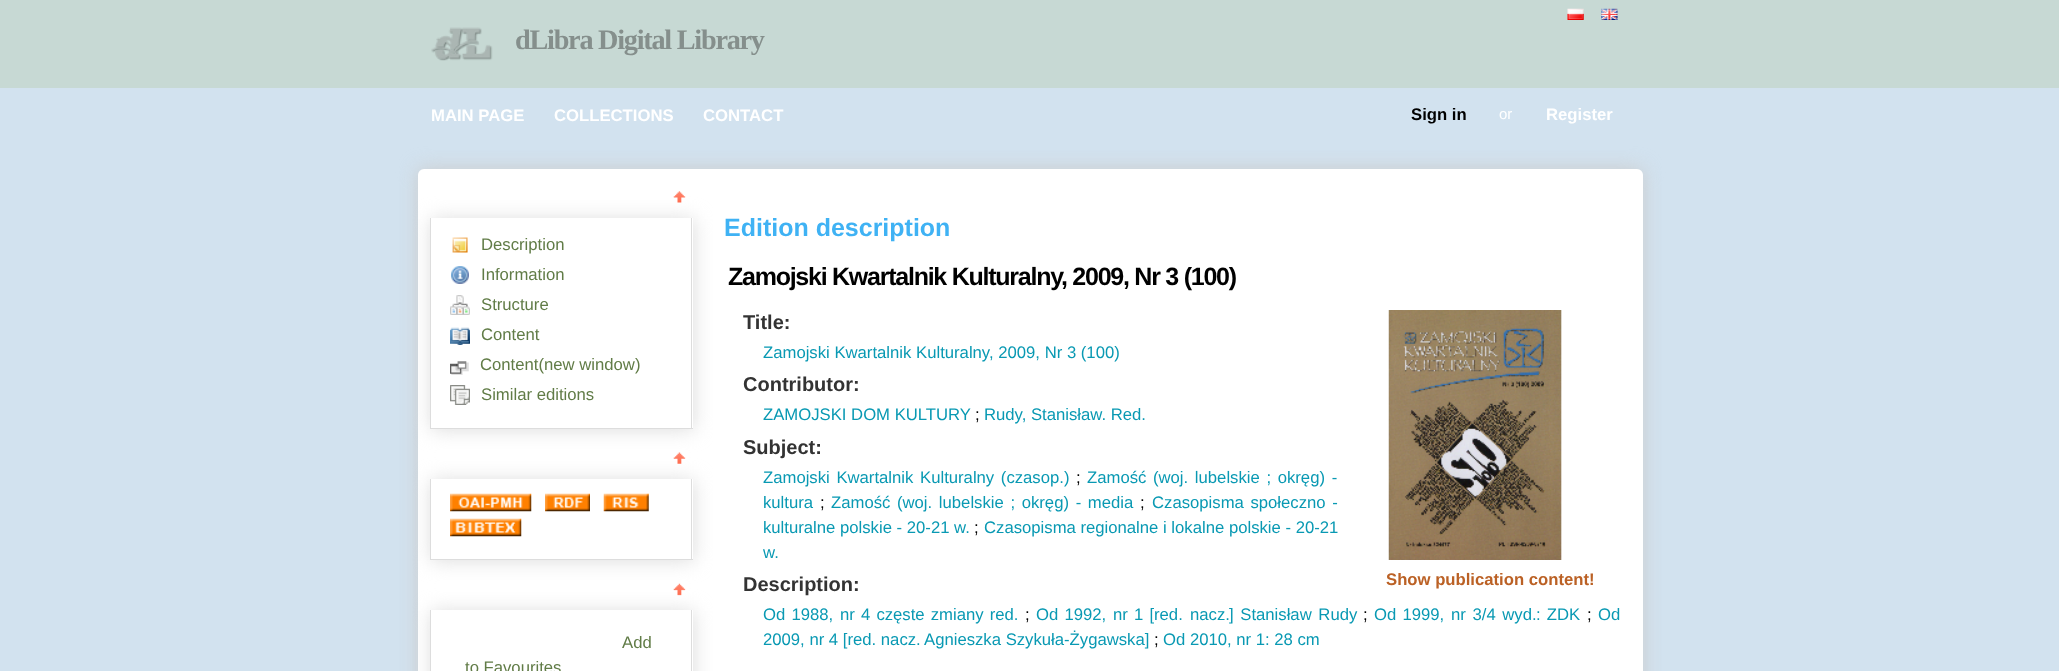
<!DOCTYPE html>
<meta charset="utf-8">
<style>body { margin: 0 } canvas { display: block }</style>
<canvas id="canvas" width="2059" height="671"></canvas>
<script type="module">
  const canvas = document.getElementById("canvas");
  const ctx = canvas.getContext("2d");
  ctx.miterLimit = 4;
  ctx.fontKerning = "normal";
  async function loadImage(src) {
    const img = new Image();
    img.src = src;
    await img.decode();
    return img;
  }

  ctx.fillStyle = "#d2e2ef";
  ctx.fillRect(0, 0, 2059, 671);
  ctx.fillStyle = "#c7d9d4";
  ctx.fillRect(0, 0, 2059, 88);
  ctx.drawImage(await loadImage("img1.png"), 1567, 8, 17, 12);
  ctx.drawImage(await loadImage("img2.png"), 1601, 8, 17, 12);
  ctx.drawImage(await loadImage("img3.png"), 431, 27, 62, 34);
  ctx.letterSpacing = "-1.25px";
  ctx.font = "bold 28.25px Liberation Serif";
  ctx.fillStyle = "#858f8c";
  ctx.fillText("dLibra Digital Library", 515, 49);
  ctx.letterSpacing = "0px";
  ctx.font = "bold 16.7px Liberation Sans";
  ctx.fillStyle = "#ffffff";
  ctx.fillText("MAIN PAGE", 431, 121);
  ctx.fillText("COLLECTIONS", 554, 121);
  ctx.fillText("CONTACT", 703, 121);
  ctx.fillStyle = "#000000";
  ctx.fillText("Sign in", 1411, 120);
  ctx.font = "15px Liberation Sans";
  ctx.fillStyle = "#ffffff";
  ctx.fillText("or", 1499, 119);
  ctx.font = "bold 16.7px Liberation Sans";
  ctx.fillText("Register", 1546, 120);
  ctx.fillStyle = "#cccccc";
  ctx.filter = "blur(9.5px)";
  ctx.beginPath();
  ctx.roundRect(418, 169, 1225, 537, 6);
  ctx.fill();
  ctx.filter = "none";
  ctx.fillStyle = "#ffffff";
  ctx.beginPath();
  ctx.roundRect(418, 169, 1225, 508, 6);
  ctx.fill();
  ctx.save();
  ctx.beginPath();
  ctx.moveTo(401, 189);
  ctx.lineTo(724, 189);
  ctx.lineTo(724, 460);
  ctx.lineTo(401, 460);
  ctx.closePath();
  ctx.moveTo(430, 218);
  ctx.lineTo(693, 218);
  ctx.lineTo(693, 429);
  ctx.lineTo(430, 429);
  ctx.closePath();
  ctx.clip("evenodd");
  ctx.fillStyle = "#dddddd";
  ctx.filter = "blur(9.5px)";
  ctx.beginPath();
  ctx.rect(431, 219, 263, 211);
  ctx.fill();
  ctx.filter = "none";
  ctx.restore();
  ctx.drawImage(await loadImage("img4.png"), 673, 191, 13, 12);
  ctx.fillStyle = "#dddddd";
  ctx.fillRect(691, 218, 1, 211);
  ctx.fillRect(430, 428, 263, 1);
  ctx.fillRect(430, 218, 1, 211);
  ctx.drawImage(await loadImage("img5.png"), 452, 237, 16, 16);
  ctx.font = "16.7px Liberation Sans";
  ctx.fillStyle = "#617c47";
  ctx.fillText("Description", 481, 250);
  ctx.drawImage(await loadImage("img6.png"), 451, 266, 18, 18);
  ctx.fillText("Information", 481, 280);
  ctx.drawImage(await loadImage("img7.png"), 450, 295, 20, 20);
  ctx.fillText("Structure", 481, 310);
  ctx.drawImage(await loadImage("img8.png"), 450, 327, 20, 18);
  ctx.fillText("Content", 481, 340);
  ctx.drawImage(await loadImage("img9.png"), 450, 361, 19, 14);
  ctx.fillText("Content(new window)", 480, 370);
  ctx.drawImage(await loadImage("img10.png"), 450, 385, 20, 20);
  ctx.fillText("Similar editions", 481, 400);
  ctx.save();
  ctx.beginPath();
  ctx.moveTo(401, 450);
  ctx.lineTo(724, 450);
  ctx.lineTo(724, 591);
  ctx.lineTo(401, 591);
  ctx.closePath();
  ctx.moveTo(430, 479);
  ctx.lineTo(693, 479);
  ctx.lineTo(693, 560);
  ctx.lineTo(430, 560);
  ctx.closePath();
  ctx.clip("evenodd");
  ctx.fillStyle = "#dddddd";
  ctx.filter = "blur(9.5px)";
  ctx.beginPath();
  ctx.rect(431, 480, 263, 81);
  ctx.fill();
  ctx.filter = "none";
  ctx.restore();
  ctx.fillStyle = "#dddddd";
  ctx.fillRect(691, 479, 1, 81);
  ctx.fillRect(430, 559, 263, 1);
  ctx.fillRect(430, 479, 1, 81);
  ctx.drawImage(await loadImage("img11.png"), 450, 493, 82, 19);
  ctx.drawImage(await loadImage("img12.png"), 545, 493, 45, 19);
  ctx.drawImage(await loadImage("img13.png"), 603, 493, 46, 19);
  ctx.drawImage(await loadImage("img14.png"), 450, 518, 72, 19);
  ctx.drawImage(await loadImage("img15.png"), 673, 452, 13, 12);
  ctx.save();
  ctx.beginPath();
  ctx.moveTo(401, 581);
  ctx.lineTo(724, 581);
  ctx.lineTo(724, 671);
  ctx.lineTo(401, 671);
  ctx.closePath();
  ctx.moveTo(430, 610);
  ctx.lineTo(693, 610);
  ctx.lineTo(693, 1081);
  ctx.lineTo(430, 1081);
  ctx.closePath();
  ctx.clip("evenodd");
  ctx.filter = "blur(9.5px)";
  ctx.beginPath();
  ctx.rect(431, 611, 263, 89);
  ctx.fill();
  ctx.filter = "none";
  ctx.restore();
  ctx.drawImage(await loadImage("img16.png"), 673, 583, 13, 13);
  ctx.fillRect(691, 610, 1, 61);
  ctx.fillRect(430, 610, 1, 61);
  ctx.fillStyle = "#617c47";
  ctx.fillText("Add", 622, 648);
  ctx.fillText("to Favourites", 465, 673);
  ctx.font = "bold 25px Liberation Sans";
  ctx.fillStyle = "#3fb2f4";
  ctx.fillText("Edition description", 724, 236);
  ctx.letterSpacing = "-1.25px";
  ctx.fillStyle = "#000000";
  ctx.fillText("Zamojski Kwartalnik Kulturalny, 2009, Nr 3 (100)", 728, 285);
  ctx.letterSpacing = "0px";
  ctx.font = "bold 20px Liberation Sans";
  ctx.fillStyle = "#333333";
  ctx.fillText("Title:", 743, 329);
  ctx.font = "16.7px Liberation Sans";
  ctx.fillStyle = "#0999b3";
  ctx.fillText("Zamojski Kwartalnik Kulturalny, 2009, Nr 3 (100)", 763, 358);
  ctx.font = "bold 20px Liberation Sans";
  ctx.fillStyle = "#333333";
  ctx.fillText("Contributor:", 743, 391);
  ctx.font = "16.7px Liberation Sans";
  ctx.fillStyle = "#0999b3";
  ctx.fillText("ZAMOJSKI DOM KULTURY", 763, 420);
  ctx.fillStyle = "#000000";
  ctx.fillText(";", 975, 420);
  ctx.fillStyle = "#0999b3";
  ctx.fillText("Rudy, Stanisław. Red.", 984, 420);
  ctx.font = "bold 20px Liberation Sans";
  ctx.fillStyle = "#333333";
  ctx.fillText("Subject:", 743, 454);
  ctx.wordSpacing = "2px";
  ctx.font = "16.7px Liberation Sans";
  ctx.fillStyle = "#0999b3";
  ctx.fillText("Zamojski Kwartalnik Kulturalny (czasop.)", 763, 483);
  ctx.wordSpacing = "0px";
  ctx.fillStyle = "#000000";
  ctx.fillText(";", 1076, 483);
  ctx.wordSpacing = "2px";
  ctx.fillStyle = "#0999b3";
  ctx.fillText("Zamość (woj. lubelskie ; okręg) -", 1087, 483);
  ctx.wordSpacing = "0px";
  ctx.fillText("kultura", 763, 508);
  ctx.fillStyle = "#000000";
  ctx.fillText(";", 820, 508);
  ctx.wordSpacing = "2px";
  ctx.fillStyle = "#0999b3";
  ctx.fillText("Zamość (woj. lubelskie ; okręg) - media", 831, 508);
  ctx.wordSpacing = "0px";
  ctx.fillStyle = "#000000";
  ctx.fillText(";", 1140, 508);
  ctx.wordSpacing = "2px";
  ctx.fillStyle = "#0999b3";
  ctx.fillText("Czasopisma społeczno -", 1152, 508);
  ctx.wordSpacing = "0px";
  ctx.fillText("kulturalne polskie - 20-21 w.", 763, 533);
  ctx.fillStyle = "#000000";
  ctx.fillText(";", 974, 533);
  ctx.fillStyle = "#0999b3";
  ctx.fillText("Czasopisma regionalne i lokalne polskie - 20-21", 984, 533);
  ctx.fillText("w.", 763, 558);
  ctx.drawImage(await loadImage("img17.png"), 1388, 310, 174, 250);
  ctx.font = "bold 16.7px Liberation Sans";
  ctx.fillStyle = "#bb6125";
  ctx.fillText("Show publication content!", 1386, 585);
  ctx.font = "bold 20px Liberation Sans";
  ctx.fillStyle = "#333333";
  ctx.fillText("Description:", 743, 591);
  ctx.wordSpacing = "1.5px";
  ctx.font = "16.7px Liberation Sans";
  ctx.fillStyle = "#0999b3";
  ctx.fillText("Od 1988,", 763, 620);
  ctx.fillText("nr 4 częste zmiany red.", 840, 620);
  ctx.wordSpacing = "0px";
  ctx.fillStyle = "#000000";
  ctx.fillText(";", 1025, 620);
  ctx.wordSpacing = "1.5px";
  ctx.fillStyle = "#0999b3";
  ctx.fillText("Od 1992,", 1036, 620);
  ctx.fillText("nr 1 [red.", 1113, 620);
  ctx.wordSpacing = "0px";
  ctx.fillText("nacz.", 1190, 620);
  ctx.wordSpacing = "2px";
  ctx.fillText("] Stanisław Rudy", 1229, 620);
  ctx.wordSpacing = "0px";
  ctx.fillStyle = "#000000";
  ctx.fillText(";", 1363, 620);
  ctx.wordSpacing = "1.5px";
  ctx.fillStyle = "#0999b3";
  ctx.fillText("Od 1999,", 1374, 620);
  ctx.wordSpacing = "2px";
  ctx.fillText("nr 3/4 wyd.", 1451, 620);
  ctx.wordSpacing = "1.5px";
  ctx.fillText(": ZDK", 1536, 620);
  ctx.wordSpacing = "0px";
  ctx.fillStyle = "#000000";
  ctx.fillText(";", 1587, 620);
  ctx.fillStyle = "#0999b3";
  ctx.fillText("Od", 1598, 620);
  ctx.fillText("2009, nr 4 [red. nacz.", 763, 645);
  ctx.fillText("Agnieszka Szykuła-Żygawska]", 924, 645);
  ctx.fillStyle = "#000000";
  ctx.fillText(";", 1154, 645);
  ctx.fillStyle = "#0999b3";
  ctx.fillText("Od 2010, nr 1: 28 cm", 1163, 645);
</script>
